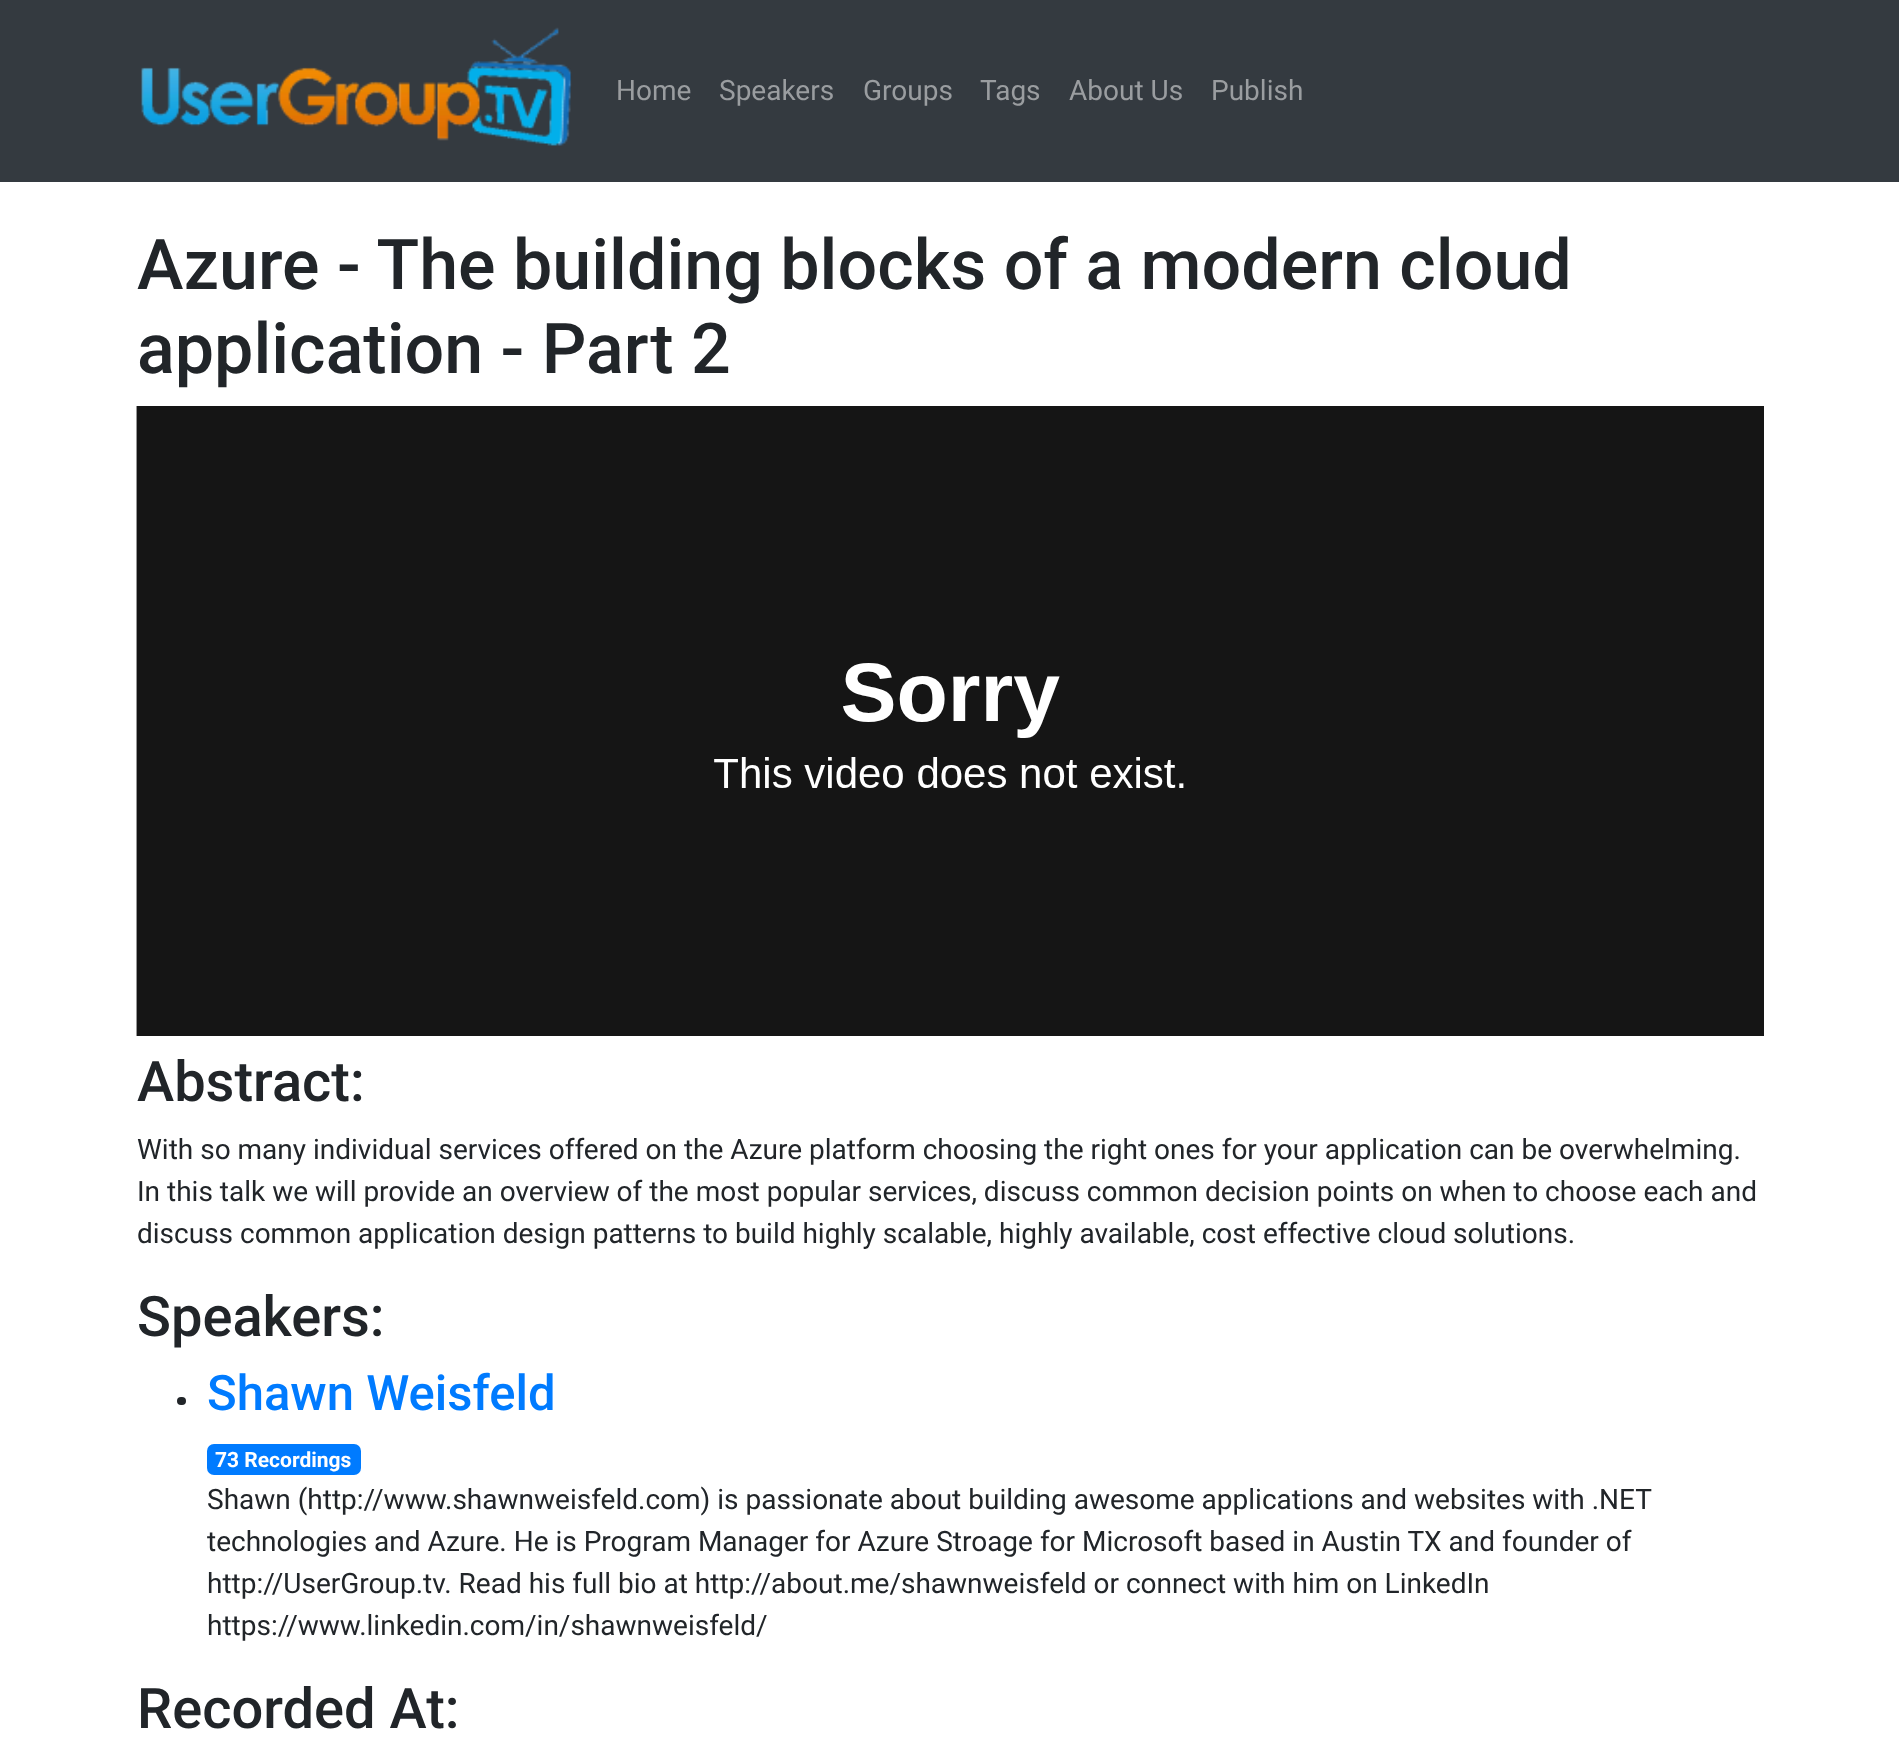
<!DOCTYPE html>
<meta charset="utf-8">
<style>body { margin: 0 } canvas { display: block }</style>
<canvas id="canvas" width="1899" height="1762"></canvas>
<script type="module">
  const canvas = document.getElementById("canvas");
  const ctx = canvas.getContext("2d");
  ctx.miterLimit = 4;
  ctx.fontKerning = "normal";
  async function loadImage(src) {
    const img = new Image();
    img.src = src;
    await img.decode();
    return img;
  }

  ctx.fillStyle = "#ffffff";
  ctx.fillRect(0, 0, 1899, 1762);
  ctx.fillStyle = "#343a40";
  ctx.fillRect(0, 0, 1899, 182);
  ctx.drawImage(await loadImage("img1.png"), 141, 27, 431, 119);
  ctx.font = "28px Roboto";
  ctx.fillStyle = "#9a9da0";
  ctx.fillText("Home", 616, 100);
  ctx.fillText("Speakers", 719, 100);
  ctx.fillText("Groups", 863, 100);
  ctx.fillText("Tags", 980, 100);
  ctx.fillText("About Us", 1069, 100);
  ctx.fillText("Publish", 1211, 100);
  ctx.font = "500 70px Roboto";
  ctx.fillStyle = "#212529";
  ctx.fillText("Azure - The building blocks of a modern cloud", 137, 289);
  ctx.fillText("application - Part 2", 137, 373);
  ctx.drawImage(await loadImage("img2.png"), 136, 406, 1628, 630);
  ctx.font = "500 56px Roboto";
  ctx.fillText("Abstract:", 137, 1101);
  ctx.font = "28px Roboto";
  ctx.fillText("With so many individual services offered on the Azure platform choosing the right ones for your application can be overwhelming.", 137, 1159);
  ctx.fillText("In this talk we will provide an overview of the most popular services, discuss common decision points on when to choose each and", 137, 1201);
  ctx.fillText("discuss common application design patterns to build highly scalable, highly available, cost effective cloud solutions.", 137, 1243);
  ctx.font = "500 56px Roboto";
  ctx.fillText("Speakers:", 137, 1336);
  ctx.beginPath();
  ctx.roundRect(177, 1397, 9, 8, 4);
  ctx.fill();
  ctx.font = "500 49px Roboto";
  ctx.fillStyle = "#007bff";
  ctx.fillText("Shawn Weisfeld", 207, 1410);
  ctx.beginPath();
  ctx.roundRect(207, 1444, 154, 31, 7);
  ctx.fill();
  ctx.font = "bold 21px Roboto";
  ctx.fillStyle = "#ffffff";
  ctx.fillText("73 Recordings", 215, 1467);
  ctx.font = "28px Roboto";
  ctx.fillStyle = "#212529";
  ctx.fillText("Shawn (http://www.shawnweisfeld.com) is passionate about building awesome applications and websites with .NET", 207, 1509);
  ctx.fillText("technologies and Azure. He is Program Manager for Azure Stroage for Microsoft based in Austin TX and founder of", 207, 1551);
  ctx.fillText("http://UserGroup.tv. Read his full bio at http://about.me/shawnweisfeld or connect with him on LinkedIn", 207, 1593);
  ctx.fillText("https://www.linkedin.com/in/shawnweisfeld/", 207, 1635);
  ctx.font = "500 56px Roboto";
  ctx.fillText("Recorded At:", 137, 1728);
</script>
